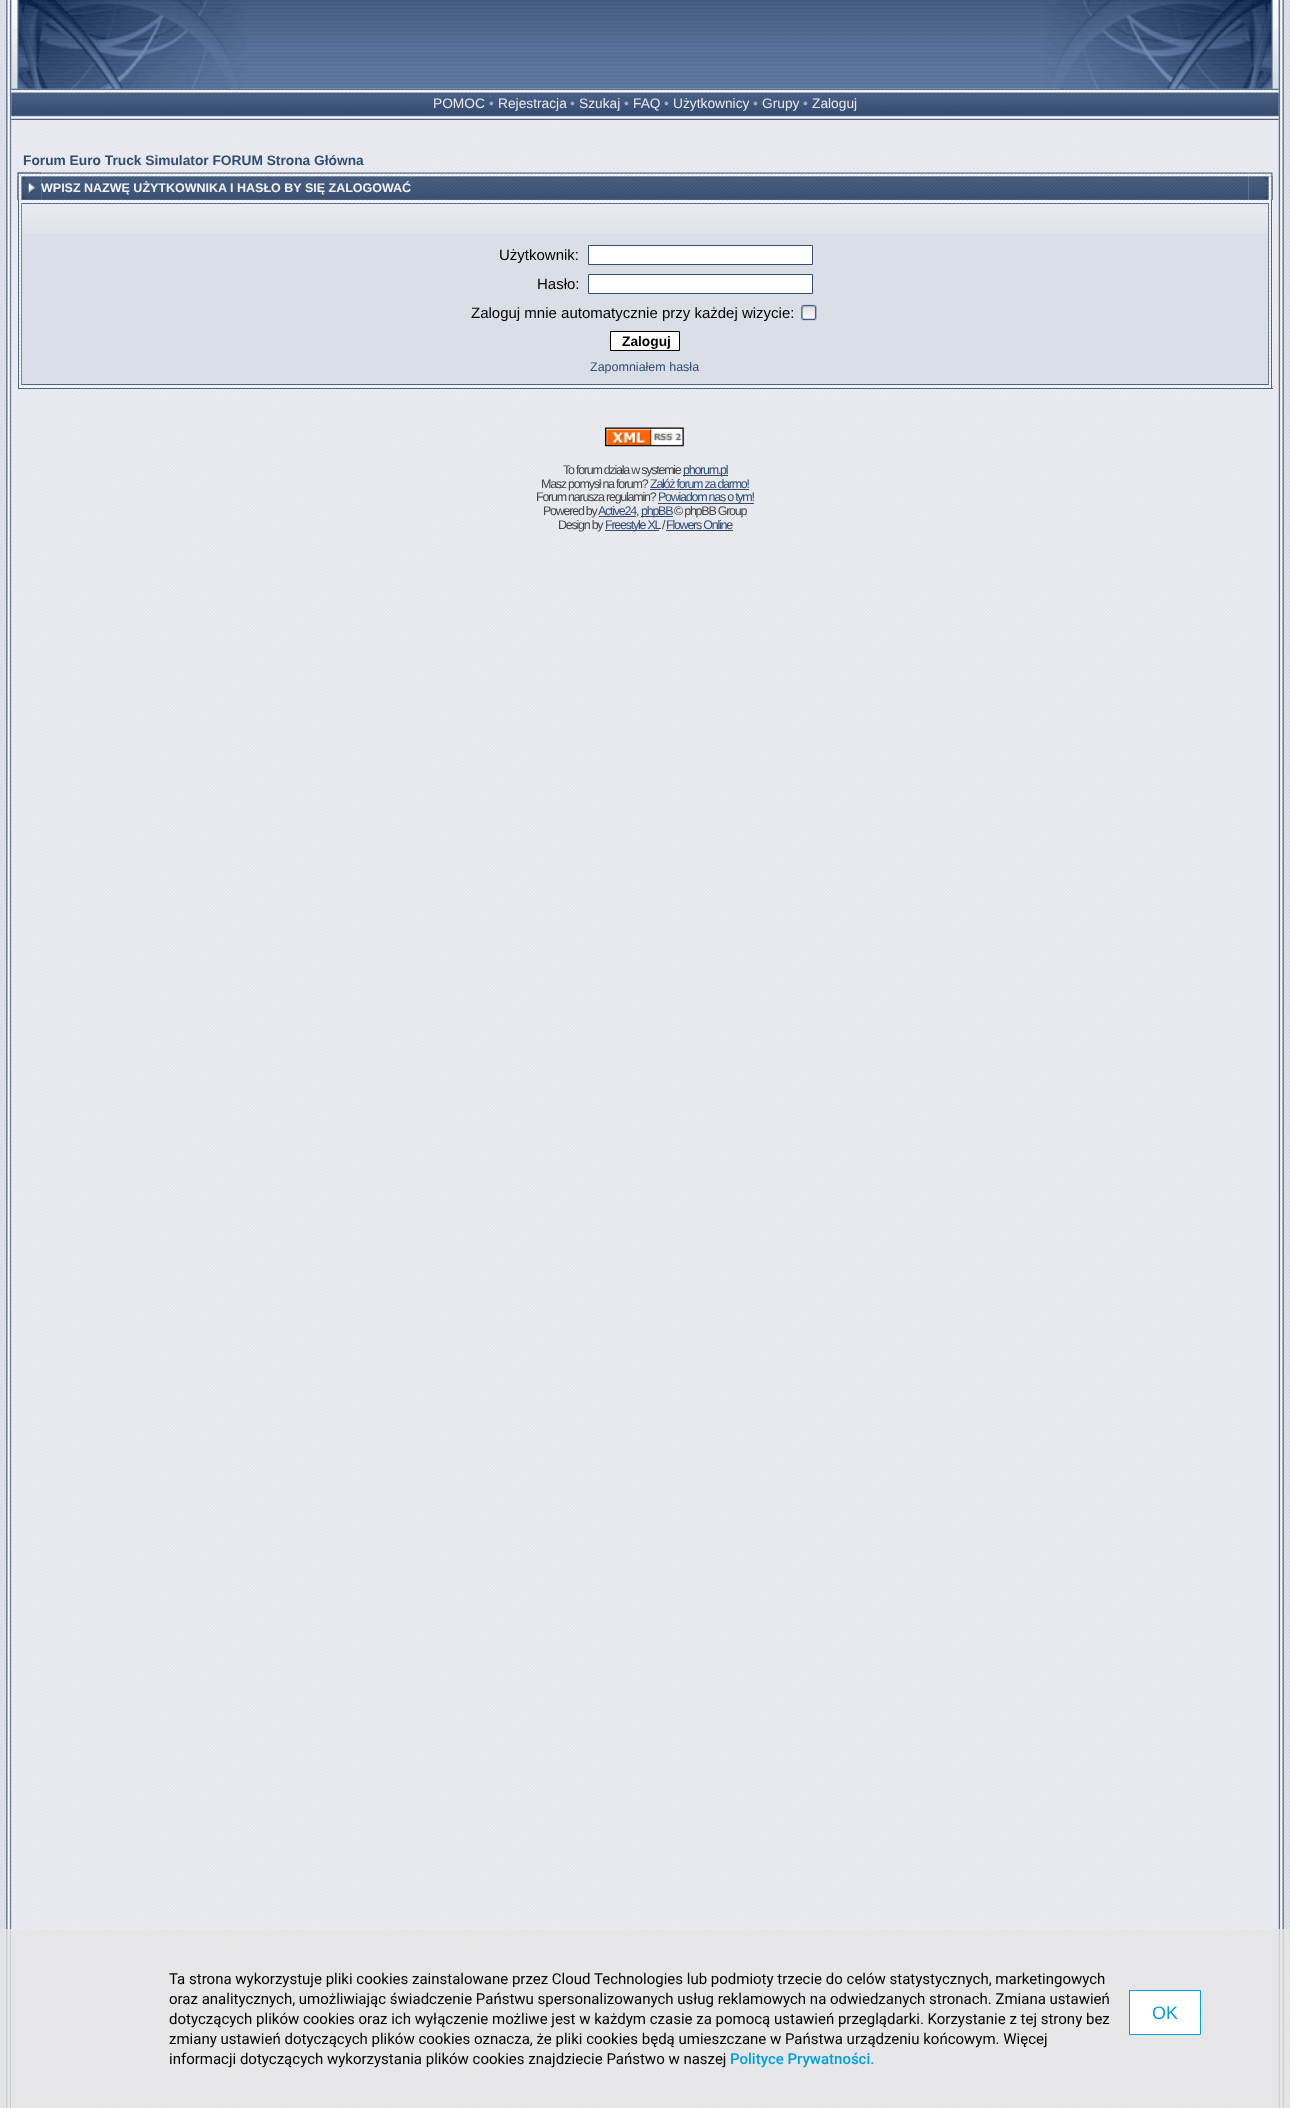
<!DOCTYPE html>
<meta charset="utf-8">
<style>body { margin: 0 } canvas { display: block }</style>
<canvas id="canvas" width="1290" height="2108"></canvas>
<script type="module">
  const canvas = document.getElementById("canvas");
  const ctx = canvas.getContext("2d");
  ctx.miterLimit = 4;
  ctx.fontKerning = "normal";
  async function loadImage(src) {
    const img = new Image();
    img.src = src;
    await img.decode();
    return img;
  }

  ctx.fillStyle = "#ffffff";
  ctx.fillRect(0, 0, 1290, 2108);
  ctx.drawImage(await loadImage("img1.png"), 0, 0, 1290, 2108);
  ctx.drawImage(await loadImage("img2.png"), 6, 0, 6, 2108);
  ctx.drawImage(await loadImage("img3.png"), 11, 0, 1268, 2108);
  ctx.drawImage(await loadImage("img7.png"), 11, 88, 1268, 32);
  ctx.drawImage(await loadImage("img17.png"), 1278, 0, 6, 2108);
  ctx.drawImage(await loadImage("img4.png"), 11, 0, 1268, 89);
  ctx.drawImage(await loadImage("img5.png"), 11, 0, 237, 89);
  ctx.drawImage(await loadImage("img6.png"), 1042, 0, 237, 89);
  ctx.font = "13.75px Liberation Sans";
  ctx.fillStyle = "#e7eaf0";
  ctx.fillText("POMOC", 433, 108);
  ctx.fillStyle = "#a1aed0";
  ctx.fillText("•", 489, 108);
  ctx.fillStyle = "#e7eaf0";
  ctx.fillText("Rejestracja", 498, 108);
  ctx.fillStyle = "#a1aed0";
  ctx.fillText("•", 570, 108);
  ctx.fillStyle = "#e7eaf0";
  ctx.fillText("Szukaj", 579, 108);
  ctx.fillStyle = "#a1aed0";
  ctx.fillText("•", 624, 108);
  ctx.fillStyle = "#e7eaf0";
  ctx.fillText("FAQ", 633, 108);
  ctx.fillStyle = "#a1aed0";
  ctx.fillText("•", 664, 108);
  ctx.fillStyle = "#e7eaf0";
  ctx.fillText("Użytkownicy", 673, 108);
  ctx.fillStyle = "#a1aed0";
  ctx.fillText("•", 753, 108);
  ctx.fillStyle = "#e7eaf0";
  ctx.fillText("Grupy", 762, 108);
  ctx.fillStyle = "#a1aed0";
  ctx.fillText("•", 803, 108);
  ctx.fillStyle = "#e7eaf0";
  ctx.fillText("Zaloguj", 812, 108);
  ctx.font = "bold 13.75px Liberation Sans";
  ctx.fillStyle = "#324c75";
  ctx.fillText("Forum Euro Truck Simulator FORUM Strona Główna", 23, 165);
  ctx.drawImage(await loadImage("img8.png"), 17, 200, 1256, 189);
  ctx.fillStyle = "#4c6388";
  ctx.fillRect(1271, 200, 1, 189);
  ctx.fillRect(18, 388, 1255, 1);
  ctx.fillRect(18, 200, 1, 189);
  ctx.drawImage(await loadImage("img9.png"), 17, 172, 25, 28);
  ctx.drawImage(await loadImage("img11.png"), 41, 172, 1208, 28);
  ctx.drawImage(await loadImage("img10.png"), 17, 172, 25, 28);
  ctx.font = "bold 12.5px Liberation Sans";
  ctx.fillStyle = "#f1f3f8";
  ctx.fillText("WPISZ NAZWĘ UŻYTKOWNIKA I HASŁO BY SIĘ ZALOGOWAĆ", 41, 192);
  ctx.drawImage(await loadImage("img12.png"), 1248, 172, 25, 28);
  ctx.drawImage(await loadImage("img13.png"), 1264, 173, 9, 27);
  ctx.fillStyle = "#dadee7";
  ctx.fillRect(22, 233, 1246, 151);
  ctx.drawImage(await loadImage("img14.png"), 22, 204, 1246, 29);
  ctx.fillStyle = "#5a6f91";
  ctx.fillRect(21, 203, 1248, 1);
  ctx.fillStyle = "#687b9b";
  ctx.fillRect(1268, 203, 1, 182);
  ctx.fillStyle = "#4c6388";
  ctx.fillRect(21, 384, 1248, 1);
  ctx.fillStyle = "#7688a4";
  ctx.fillRect(21, 203, 1, 182);
  ctx.font = "15px Liberation Sans";
  ctx.fillStyle = "#000000";
  ctx.fillText("Użytkownik:", 499, 260);
  ctx.fillStyle = "#ffffff";
  ctx.beginPath();
  ctx.rect(588.5, 245.5, 224, 19);
  ctx.fill();
  ctx.strokeStyle = "#324c75";
  ctx.stroke();
  ctx.fillStyle = "#000000";
  ctx.fillText("Hasło:", 537, 289);
  ctx.fillStyle = "#ffffff";
  ctx.beginPath();
  ctx.rect(588.5, 274.5, 224, 19);
  ctx.fill();
  ctx.stroke();
  ctx.fillStyle = "#000000";
  ctx.fillText("Zaloguj mnie automatycznie przy każdej wizycie:", 471, 318);
  ctx.drawImage(await loadImage("img15.png"), 801, 304, 16, 17);
  ctx.fillStyle = "#ffffff";
  ctx.beginPath();
  ctx.rect(610.5, 331.5, 69, 19);
  ctx.fill();
  ctx.strokeStyle = "#000000";
  ctx.stroke();
  ctx.font = "bold 13.75px Liberation Sans";
  ctx.fillStyle = "#000000";
  ctx.fillText("Zaloguj", 622, 346);
  ctx.font = "12.5px Liberation Sans";
  ctx.fillStyle = "#324c75";
  ctx.fillText("Zapomniałem hasła", 590, 371);
  ctx.drawImage(await loadImage("img16.png"), 605, 427, 79, 20);
  ctx.letterSpacing = "-1.25px";
  ctx.fillStyle = "#444444";
  ctx.fillText("To forum działa w systemie", 563, 474);
  ctx.fillStyle = "#324c75";
  ctx.fillRect(683, 475, 45, 1);
  ctx.fillText("phorum.pl", 683, 474);
  ctx.fillStyle = "#444444";
  ctx.fillText("Masz pomysł na forum?", 541, 488);
  ctx.fillStyle = "#324c75";
  ctx.fillRect(650, 489, 99, 1);
  ctx.fillText("Załóż forum za darmo!", 650, 488);
  ctx.fillStyle = "#444444";
  ctx.fillText("Forum narusza regulamin?", 536, 501);
  ctx.fillStyle = "#324c75";
  ctx.fillRect(658, 503, 96, 1);
  ctx.fillText("Powiadom nas o tym!", 658, 501);
  ctx.fillStyle = "#444444";
  ctx.fillText("Powered by", 543, 515);
  ctx.fillStyle = "#324c75";
  ctx.fillText("Active24", 598, 515);
  ctx.fillRect(641, 516, 32, 1);
  ctx.fillText("phpBB", 641, 515);
  ctx.fillStyle = "#444444";
  ctx.fillText("© phpBB Group", 674, 515);
  ctx.fillText(",", 636, 515);
  ctx.fillStyle = "#324c75";
  ctx.fillRect(599, 516, 37, 1);
  ctx.fillStyle = "#444444";
  ctx.fillText("Design by", 558, 529);
  ctx.fillStyle = "#324c75";
  ctx.fillRect(605, 530, 54, 1);
  ctx.fillText("Freestyle XL", 605, 529);
  ctx.fillStyle = "#444444";
  ctx.fillText("/", 662, 529);
  ctx.fillStyle = "#324c75";
  ctx.fillRect(666, 530, 67, 1);
  ctx.fillText("Flowers Online", 666, 529);
  ctx.fillStyle = "rgba(229, 229, 229, 0.8)";
  ctx.fillRect(0, 1929, 1290, 179);
  ctx.letterSpacing = "0px";
  ctx.font = "15px Roboto";
  ctx.fillStyle = "#000000";
  ctx.fillText("Ta strona wykorzystuje pliki cookies zainstalowane przez Cloud Technologies lub podmioty trzecie do celów statystycznych, marketingowych", 169, 1984);
  ctx.fillText("oraz analitycznych, umożliwiając świadczenie Państwu spersonalizowanych usług reklamowych na odwiedzanych stronach. Zmiana ustawień", 169, 2004);
  ctx.fillText("dotyczących plików cookies oraz ich wyłączenie możliwe jest w każdym czasie za pomocą ustawień przeglądarki. Korzystanie z tej strony bez", 169, 2024);
  ctx.fillText("zmiany ustawień dotyczących plików cookies oznacza, że pliki cookies będą umieszczane w Państwa urządzeniu końcowym. Więcej", 169, 2044);
  ctx.fillText("informacji dotyczących wykorzystania plików cookies znajdziecie Państwo w naszej", 169, 2064);
  ctx.font = "500 15px Roboto";
  ctx.fillStyle = "#009fdf";
  ctx.fillText("Polityce Prywatności.", 730, 2064);
  ctx.fillStyle = "#ffffff";
  ctx.beginPath();
  ctx.rect(1129.5, 1990.5, 71, 44);
  ctx.fill();
  ctx.strokeStyle = "#009fdf";
  ctx.stroke();
  ctx.font = "18px Liberation Sans";
  ctx.fillStyle = "#009fdf";
  ctx.fillText("OK", 1152, 2019);
</script>
